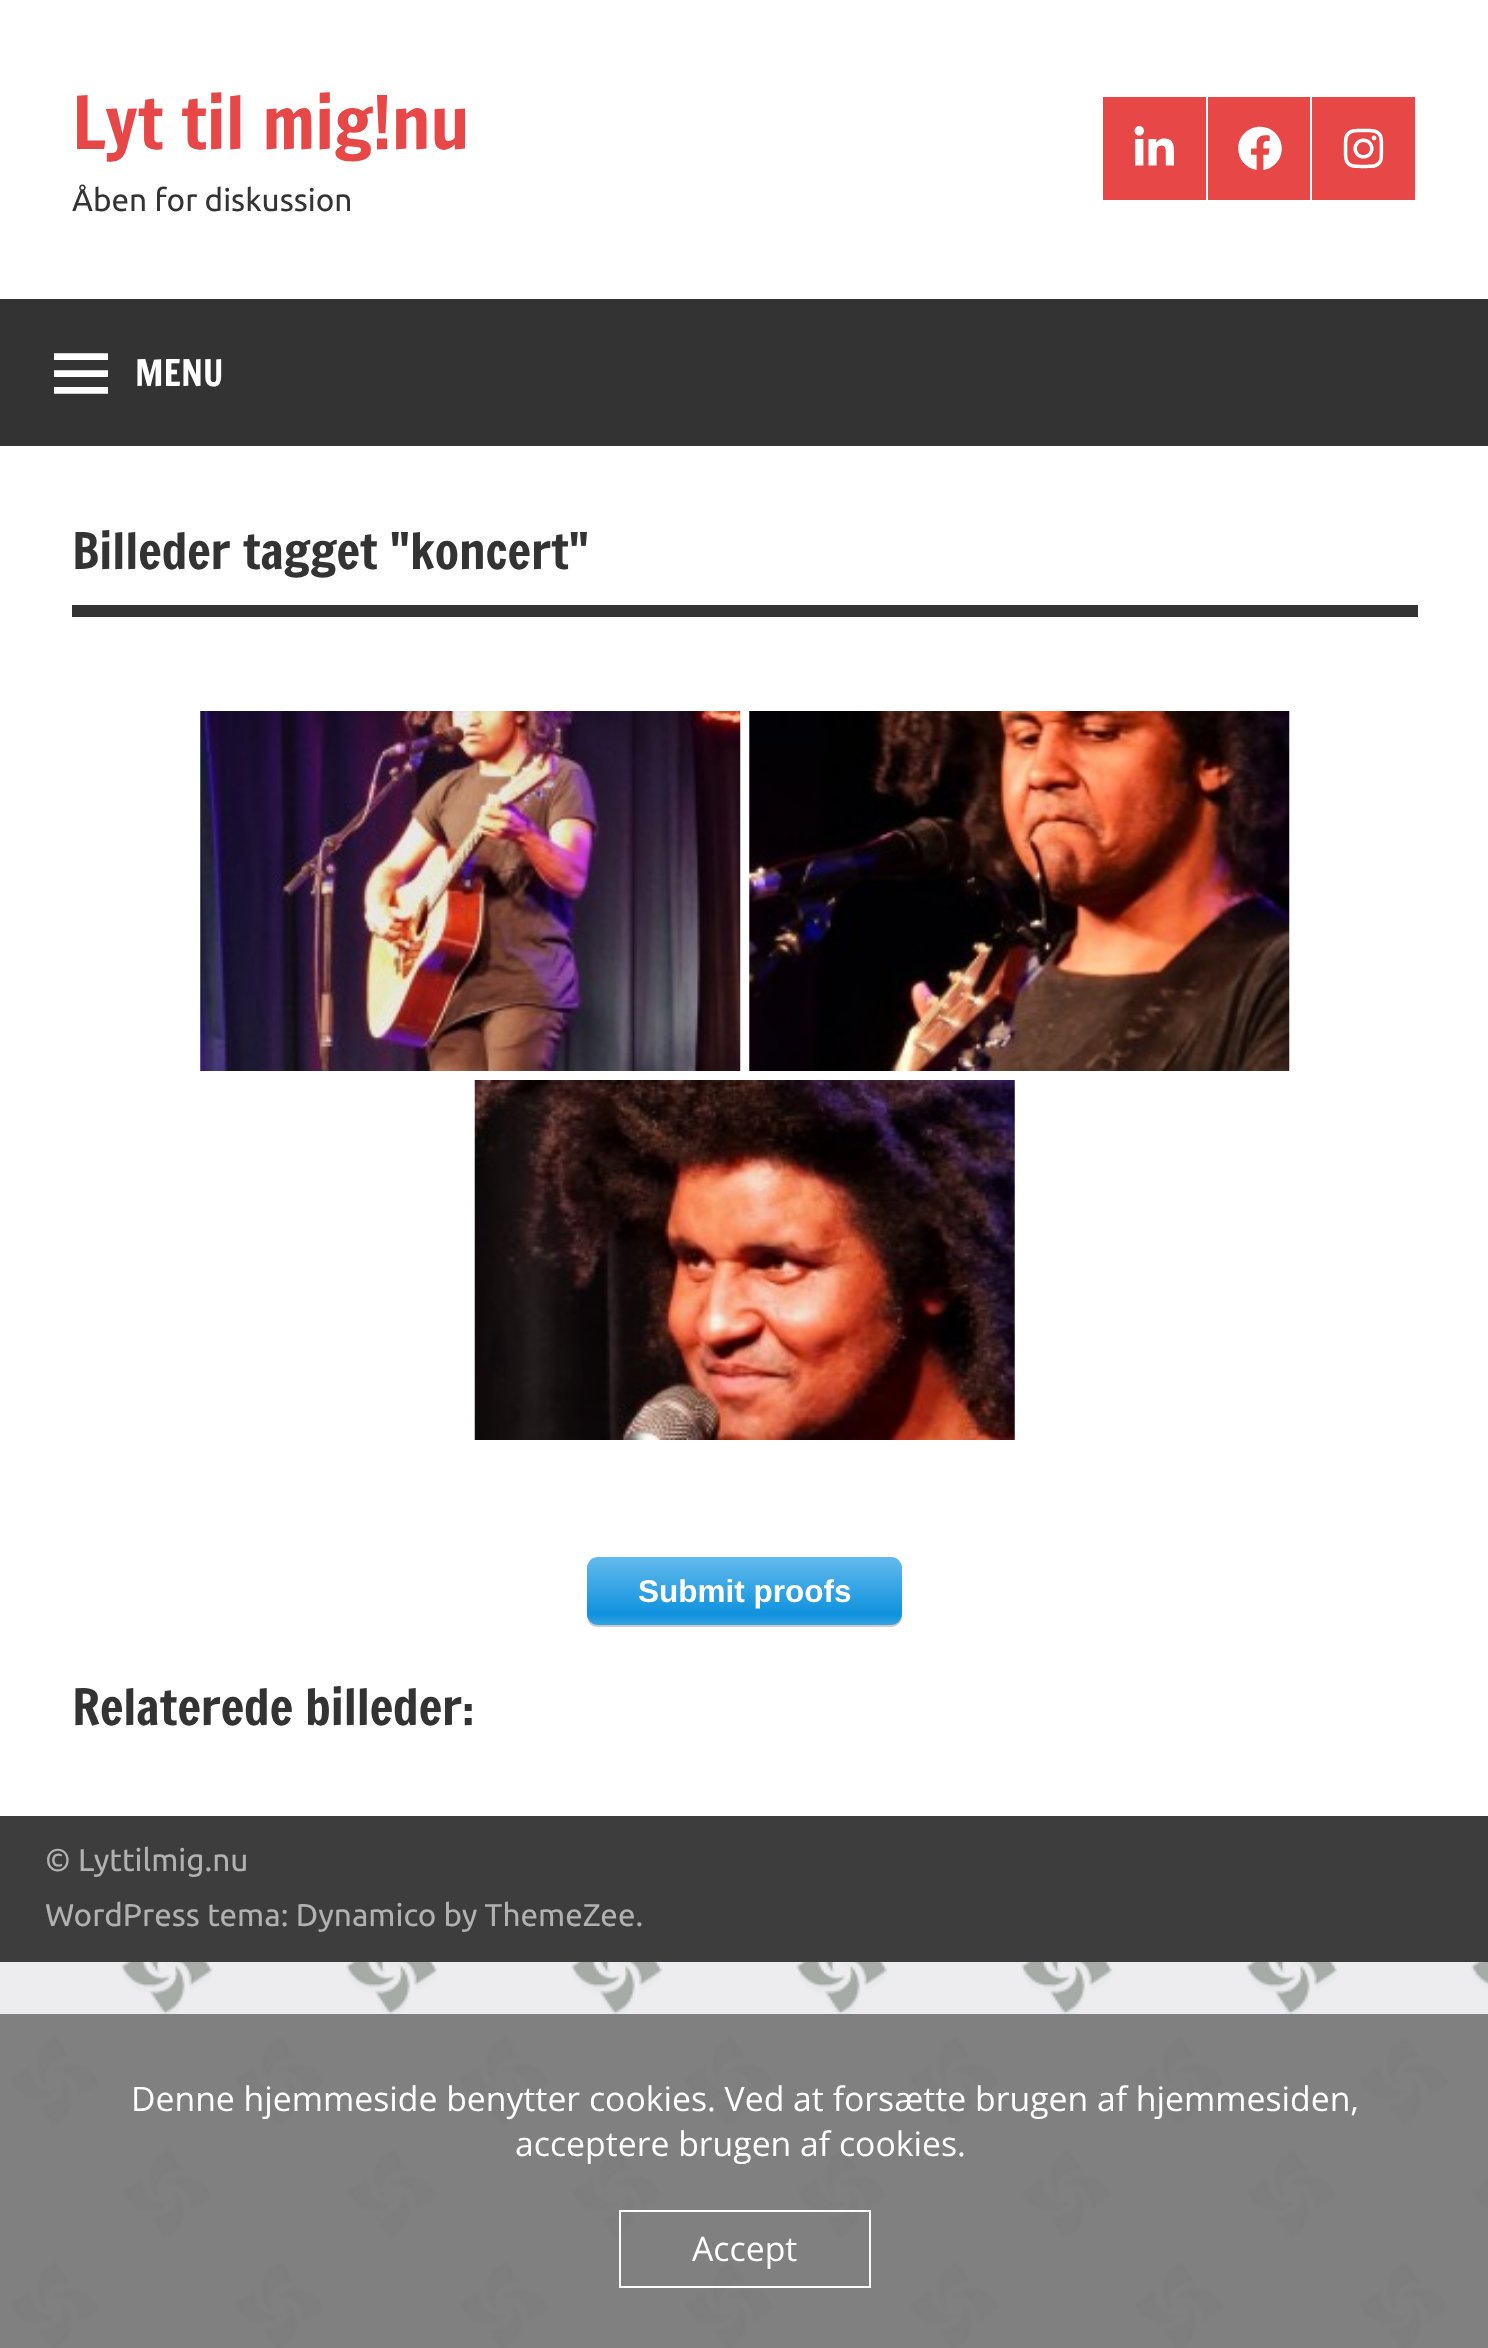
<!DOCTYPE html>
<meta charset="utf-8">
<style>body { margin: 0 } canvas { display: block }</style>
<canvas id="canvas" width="1488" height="2348"></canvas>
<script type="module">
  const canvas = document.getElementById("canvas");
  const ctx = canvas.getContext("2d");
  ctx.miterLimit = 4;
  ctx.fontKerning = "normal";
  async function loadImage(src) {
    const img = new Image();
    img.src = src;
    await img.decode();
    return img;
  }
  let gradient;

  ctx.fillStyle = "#ededef";
  ctx.fillRect(0, 0, 1488, 2348);
  ctx.drawImage(await loadImage("img1.png"), 8, 1962, 1480, 386);
  ctx.fillStyle = "#ffffff";
  ctx.fillRect(0, 0, 1488, 299);
  ctx.font = "72px Francois One";
  ctx.fillStyle = "#e84747";
  ctx.fillText("Lyt til mig!nu", 72, 149);
  ctx.font = "31.5px Ubuntu";
  ctx.fillStyle = "#333333";
  ctx.fillText("Åben for diskussion", 72, 211);
  ctx.fillStyle = "#e84747";
  ctx.fillRect(1103, 97, 103, 103);
  ctx.drawImage(await loadImage("img2.png"), 1134, 126, 40, 40);
  ctx.fillRect(1208, 97, 102, 103);
  ctx.drawImage(await loadImage("img3.png"), 1238, 126, 44, 44);
  ctx.fillRect(1312, 97, 103, 103);
  ctx.drawImage(await loadImage("img4.png"), 1343, 128, 41, 41);
  ctx.fillStyle = "#333333";
  ctx.fillRect(0, 299, 1488, 147);
  ctx.drawImage(await loadImage("img5.png"), 54, 353, 54, 41);
  ctx.font = "36px Francois One";
  ctx.fillStyle = "#ffffff";
  ctx.fillText("MENU", 135, 386);
  ctx.fillRect(0, 446, 1488, 1370);
  ctx.fillStyle = "#333333";
  ctx.fillRect(72, 605, 1346, 12);
  ctx.font = "49.5px Francois One";
  ctx.fillText("Billeder tagget \"koncert\"", 72, 569);
  ctx.drawImage(await loadImage("img6.png"), 200, 711, 541, 360);
  ctx.drawImage(await loadImage("img7.png"), 749, 711, 541, 360);
  ctx.drawImage(await loadImage("img8.png"), 474, 1080, 541, 360);
  ctx.fillStyle = "#cccccc";
  ctx.beginPath();
  ctx.moveTo(587, 1568);
  ctx.lineTo(587, 1601);
  ctx.bezierCurveTo(587, 1610, 584, 1627, 598, 1627);
  ctx.lineTo(891, 1627);
  ctx.bezierCurveTo(897, 1627, 902, 1622, 902, 1616);
  ctx.bezierCurveTo(901, 1621, 896, 1624, 891, 1624);
  ctx.lineTo(598, 1624);
  ctx.bezierCurveTo(592, 1624, 587, 1619, 587, 1613);
  ctx.closePath();
  ctx.fill();
  gradient = ctx.createLinearGradient(745, 1557, 745, 1625);
  gradient.addColorStop(0, "#63baed");
  gradient.addColorStop(0.85, "#0f92dd");
  gradient.addColorStop(1, "#38a4e2");
  ctx.fillStyle = gradient;
  ctx.beginPath();
  ctx.roundRect(587, 1557, 315, 68, 11);
  ctx.fill();
  ctx.font = "bold 31.5px Liberation Sans";
  ctx.fillStyle = "#ffffff";
  ctx.fillText("Submit proofs", 638, 1602);
  ctx.font = "49.5px Francois One";
  ctx.fillStyle = "#333333";
  ctx.fillText("Relaterede billeder:", 72, 1725);
  ctx.fillStyle = "#3d3d3d";
  ctx.fillRect(0, 1816, 1488, 146);
  ctx.font = "31.5px Ubuntu";
  ctx.fillStyle = "#b1b1b1";
  ctx.fillText("© Lyttilmig.nu", 45, 1871);
  ctx.fillText("WordPress tema: Dynamico by ThemeZee.", 45, 1926);
  ctx.fillStyle = "rgba(124, 124, 124, 0.97)";
  ctx.fillRect(0, 2014, 1488, 334);
  ctx.font = "33.75px Open Sans";
  ctx.fillStyle = "#ffffff";
  ctx.fillText("Denne hjemmeside benytter cookies. Ved at forsætte brugen af hjemmesiden,", 131, 2111);
  ctx.fillText("acceptere brugen af cookies.", 515, 2156);
  ctx.strokeStyle = "#fbfbfb";
  ctx.lineWidth = 2;
  ctx.strokeRect(620, 2211, 250, 76);
  ctx.fillText("Accept", 692, 2261);
</script>
